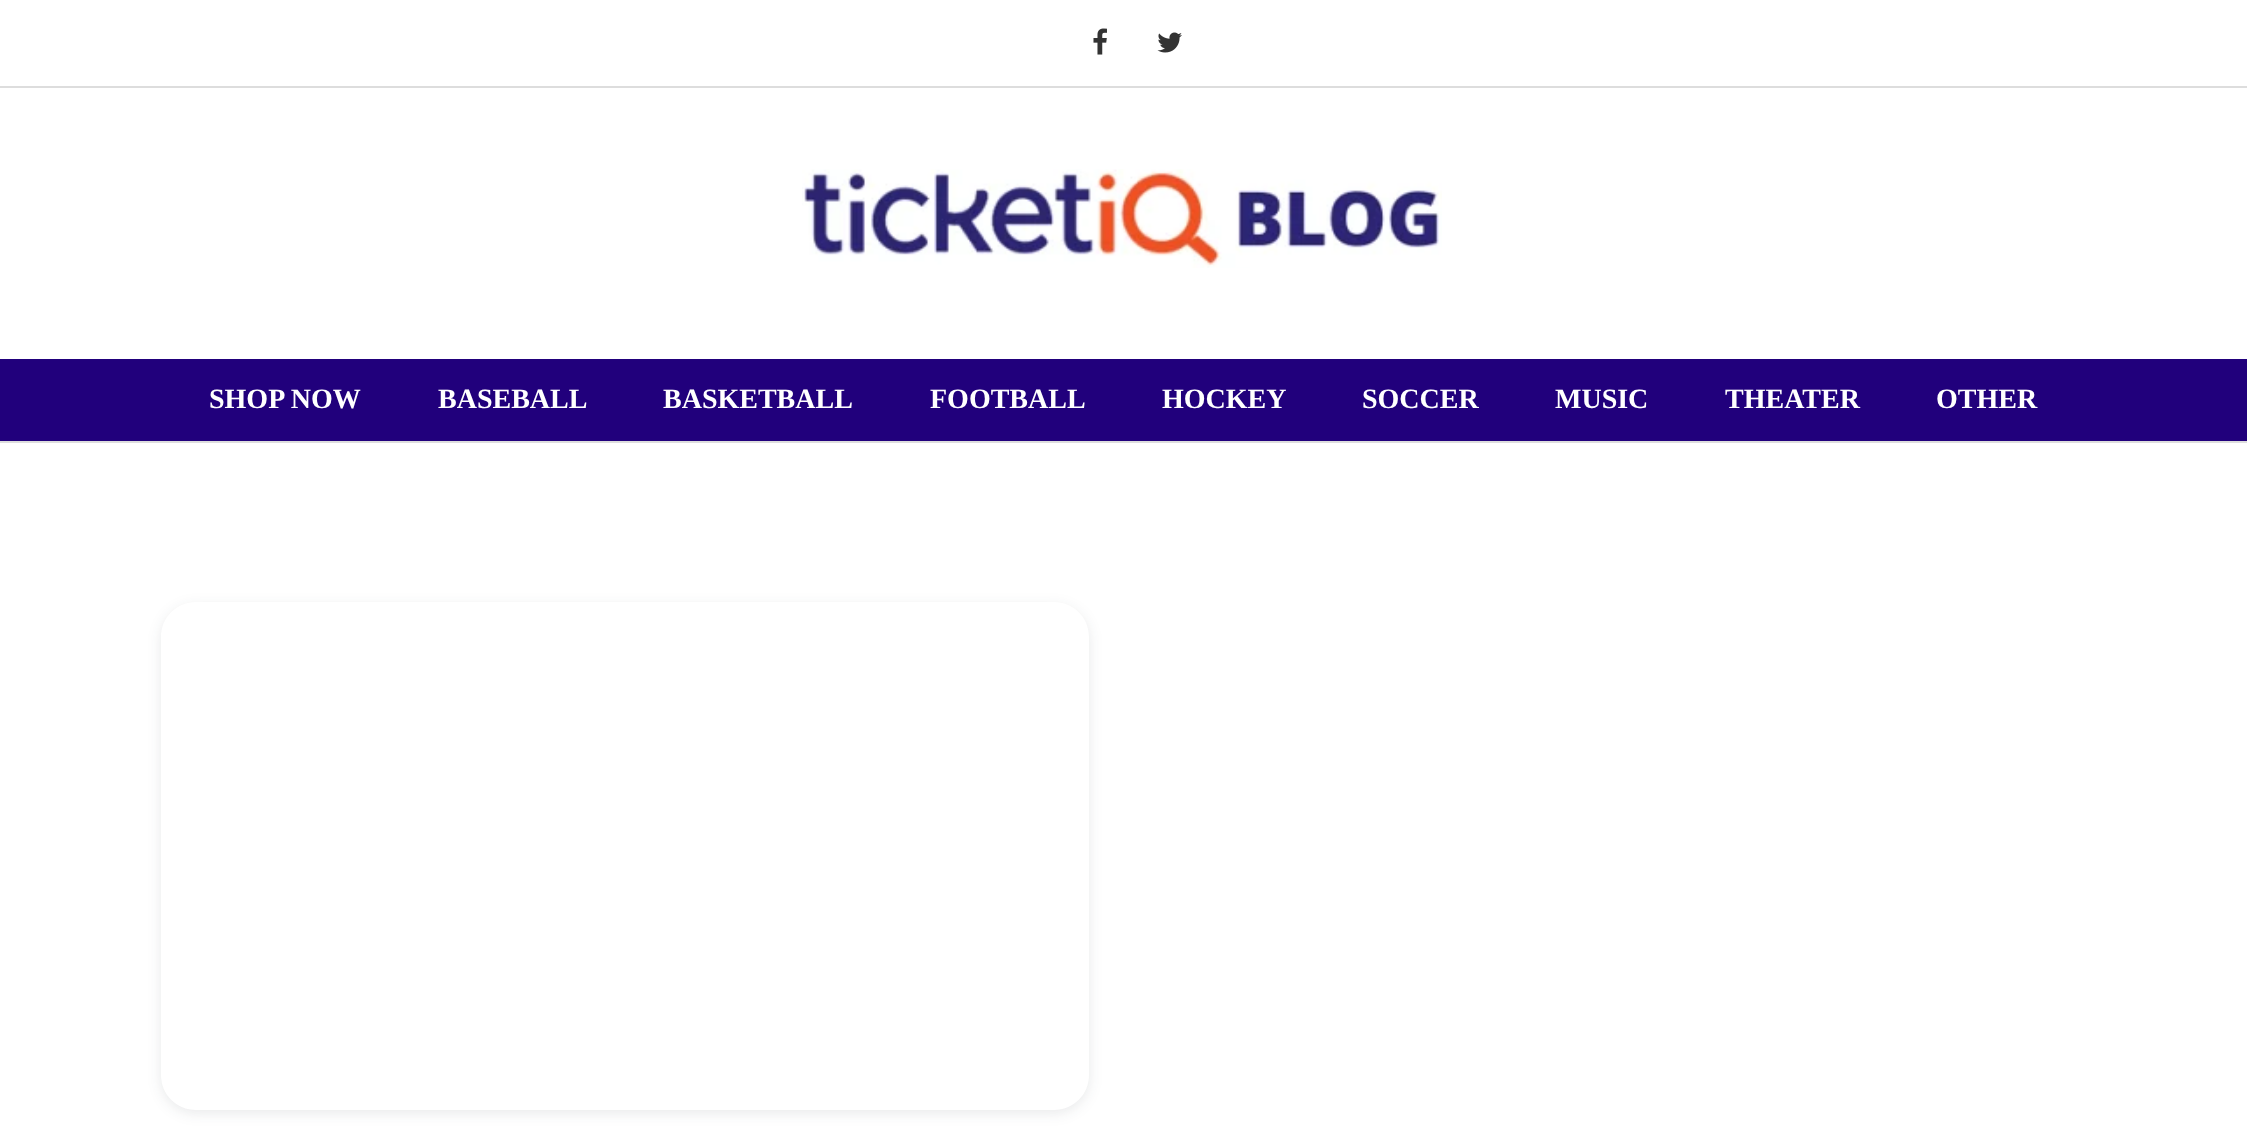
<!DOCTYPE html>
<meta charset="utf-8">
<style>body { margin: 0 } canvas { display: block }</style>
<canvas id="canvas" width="2247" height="1134"></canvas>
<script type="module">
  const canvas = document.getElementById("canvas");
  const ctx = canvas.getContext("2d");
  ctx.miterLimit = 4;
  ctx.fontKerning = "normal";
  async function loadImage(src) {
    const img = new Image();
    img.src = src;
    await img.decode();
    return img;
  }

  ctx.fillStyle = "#ffffff";
  ctx.fillRect(0, 0, 2247, 1134);
  ctx.fillStyle = "#dddddd";
  ctx.fillRect(0, 441, 2247, 2);
  ctx.fillRect(0, 86, 2247, 2);
  ctx.drawImage(await loadImage("img1.png"), 1093, 28, 14, 27);
  ctx.drawImage(await loadImage("img2.png"), 1157, 32, 25, 21);
  ctx.drawImage(await loadImage("img3.png"), 802, 169, 640, 99);
  ctx.fillStyle = "#21007c";
  ctx.fillRect(0, 359, 2247, 82);
  ctx.font = "bold 28px Liberation Serif";
  ctx.fillStyle = "#ffffff";
  ctx.fillText("SHOP NOW", 209, 408);
  ctx.fillText("BASEBALL", 438, 408);
  ctx.fillText("BASKETBALL", 663, 408);
  ctx.fillText("FOOTBALL", 930, 408);
  ctx.fillText("HOCKEY", 1162, 408);
  ctx.fillText("SOCCER", 1362, 408);
  ctx.fillText("MUSIC", 1555, 408);
  ctx.fillText("THEATER", 1725, 408);
  ctx.fillText("OTHER", 1936, 408);
  ctx.save();
  ctx.beginPath();
  ctx.moveTo(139, 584);
  ctx.lineTo(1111, 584);
  ctx.lineTo(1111, 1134);
  ctx.lineTo(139, 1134);
  ctx.closePath();
  ctx.moveTo(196, 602);
  ctx.lineTo(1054, 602);
  ctx.bezierCurveTo(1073.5, 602, 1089, 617.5, 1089, 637);
  ctx.lineTo(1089, 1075);
  ctx.bezierCurveTo(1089, 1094.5, 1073.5, 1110, 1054, 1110);
  ctx.lineTo(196, 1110);
  ctx.bezierCurveTo(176.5, 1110, 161, 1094.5, 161, 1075);
  ctx.lineTo(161, 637);
  ctx.bezierCurveTo(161, 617.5, 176.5, 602, 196, 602);
  ctx.closePath();
  ctx.clip("evenodd");
  ctx.fillStyle = "rgba(27, 39, 51, 0.1)";
  ctx.filter = "blur(7px)";
  ctx.beginPath();
  ctx.roundRect(161, 606, 928, 507, 35);
  ctx.fill();
  ctx.filter = "none";
  ctx.restore();
</script>
